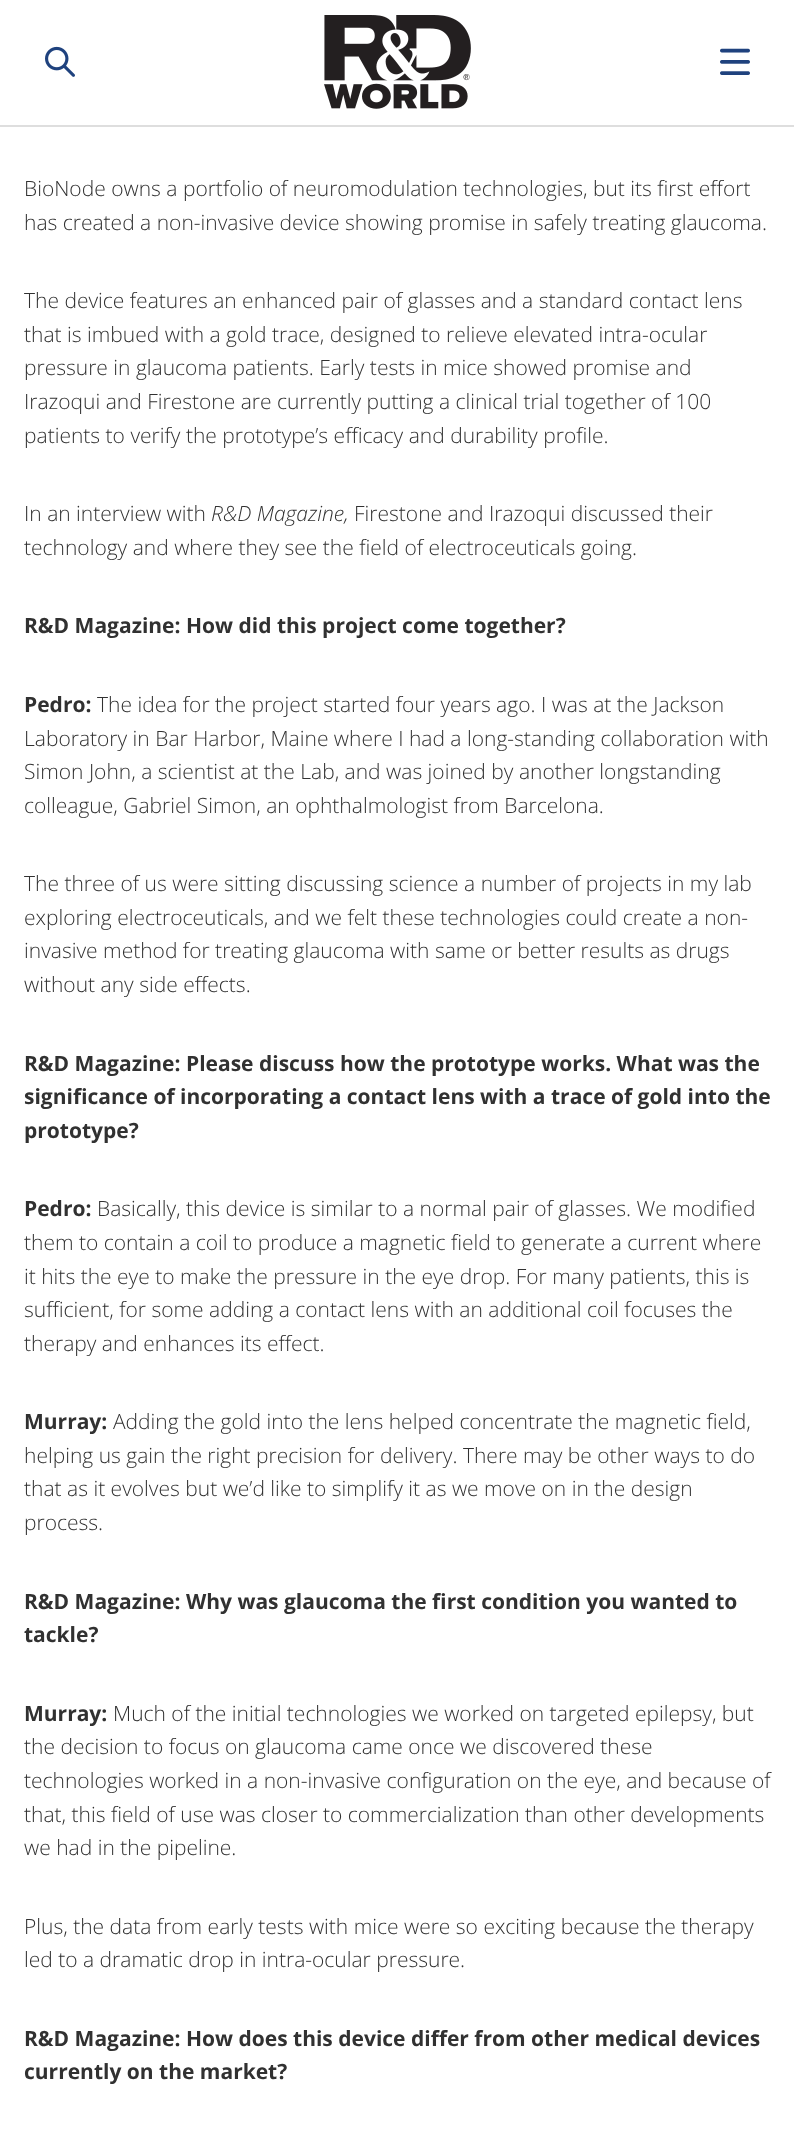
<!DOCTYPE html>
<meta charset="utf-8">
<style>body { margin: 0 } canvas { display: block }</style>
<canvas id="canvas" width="794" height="2146"></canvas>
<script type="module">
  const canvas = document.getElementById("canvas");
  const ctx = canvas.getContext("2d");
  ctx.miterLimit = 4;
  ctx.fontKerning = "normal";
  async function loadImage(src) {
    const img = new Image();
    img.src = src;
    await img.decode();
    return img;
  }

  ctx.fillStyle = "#ffffff";
  ctx.fillRect(0, 0, 794, 2146);
  ctx.fillStyle = "#dedede";
  ctx.fillRect(0, 125, 794, 2);
  ctx.drawImage(await loadImage("img1.png"), 324, 15, 147, 94);
  ctx.drawImage(await loadImage("img2.png"), 45, 46, 30, 31);
  ctx.drawImage(await loadImage("img3.png"), 720, 48, 30, 27);
  ctx.font = "300 21px Open Sans";
  ctx.fillStyle = "#313131";
  ctx.fillText("BioNode owns a portfolio of neuromodulation technologies, but its first effort", 24, 196);
  ctx.fillText("has created a non-invasive device showing promise in safely treating glaucoma.", 24, 230);
  ctx.fillText("The device features an enhanced pair of glasses and a standard contact lens", 24, 308);
  ctx.fillText("that is imbued with a gold trace, designed to relieve elevated intra-ocular", 24, 342);
  ctx.fillText("pressure in glaucoma patients. Early tests in mice showed promise and", 24, 375);
  ctx.fillText("Irazoqui and Firestone are currently putting a clinical trial together of 100", 24, 409);
  ctx.fillText("patients to verify the prototype’s efficacy and durability profile.", 24, 443);
  ctx.fillText("In an interview with", 24, 521);
  ctx.font = "italic 300 21px Open Sans";
  ctx.fillText("R&D Magazine,", 211, 521);
  ctx.font = "300 21px Open Sans";
  ctx.fillText("Firestone and Irazoqui discussed their", 354, 521);
  ctx.fillText("technology and where they see the field of electroceuticals going.", 24, 555);
  ctx.font = "bold 21px Open Sans";
  ctx.fillText("R&D Magazine: How did this project come together?", 24, 633);
  ctx.fillText("Pedro:", 24, 712);
  ctx.font = "300 21px Open Sans";
  ctx.fillText("The idea for the project started four years ago. I was at the Jackson", 97, 712);
  ctx.fillText("Laboratory in Bar Harbor, Maine where I had a long-standing collaboration with", 24, 746);
  ctx.fillText("Simon John, a scientist at the Lab, and was joined by another longstanding", 24, 779);
  ctx.fillText("colleague, Gabriel Simon, an ophthalmologist from Barcelona.", 24, 813);
  ctx.fillText("The three of us were sitting discussing science a number of projects in my lab", 24, 891);
  ctx.fillText("exploring electroceuticals, and we felt these technologies could create a non-", 24, 925);
  ctx.fillText("invasive method for treating glaucoma with same or better results as drugs", 24, 958);
  ctx.fillText("without any side effects.", 24, 992);
  ctx.font = "bold 21px Open Sans";
  ctx.fillText("R&D Magazine: Please discuss how the prototype works. What was the", 24, 1071);
  ctx.fillText("significance of incorporating a contact lens with a trace of gold into the", 24, 1104);
  ctx.fillText("prototype?", 24, 1138);
  ctx.fillText("Pedro:", 24, 1216);
  ctx.font = "300 21px Open Sans";
  ctx.fillText("Basically, this device is similar to a normal pair of glasses. We modified", 97, 1216);
  ctx.fillText("them to contain a coil to produce a magnetic field to generate a current where", 24, 1250);
  ctx.fillText("it hits the eye to make the pressure in the eye drop. For many patients, this is", 24, 1284);
  ctx.fillText("sufficient, for some adding a contact lens with an additional coil focuses the", 24, 1317);
  ctx.fillText("therapy and enhances its effect.", 24, 1351);
  ctx.font = "bold 21px Open Sans";
  ctx.fillText("Murray:", 24, 1429);
  ctx.font = "300 21px Open Sans";
  ctx.fillText("Adding the gold into the lens helped concentrate the magnetic field,", 113, 1429);
  ctx.fillText("helping us gain the right precision for delivery. There may be other ways to do", 24, 1463);
  ctx.fillText("that as it evolves but we’d like to simplify it as we move on in the design", 24, 1496);
  ctx.fillText("process.", 24, 1530);
  ctx.font = "bold 21px Open Sans";
  ctx.fillText("R&D Magazine: Why was glaucoma the first condition you wanted to", 24, 1609);
  ctx.fillText("tackle?", 24, 1642);
  ctx.fillText("Murray:", 24, 1721);
  ctx.font = "300 21px Open Sans";
  ctx.fillText("Much of the initial technologies we worked on targeted epilepsy, but", 113, 1721);
  ctx.fillText("the decision to focus on glaucoma came once we discovered these", 24, 1754);
  ctx.fillText("technologies worked in a non-invasive configuration on the eye, and because of", 24, 1788);
  ctx.fillText("that, this field of use was closer to commercialization than other developments", 24, 1822);
  ctx.fillText("we had in the pipeline.", 24, 1855);
  ctx.fillText("Plus, the data from early tests with mice were so exciting because the therapy", 24, 1934);
  ctx.fillText("led to a dramatic drop in intra-ocular pressure.", 24, 1967);
  ctx.font = "bold 21px Open Sans";
  ctx.fillText("R&D Magazine: How does this device differ from other medical devices", 24, 2046);
  ctx.fillText("currently on the market?", 24, 2079);
</script>
